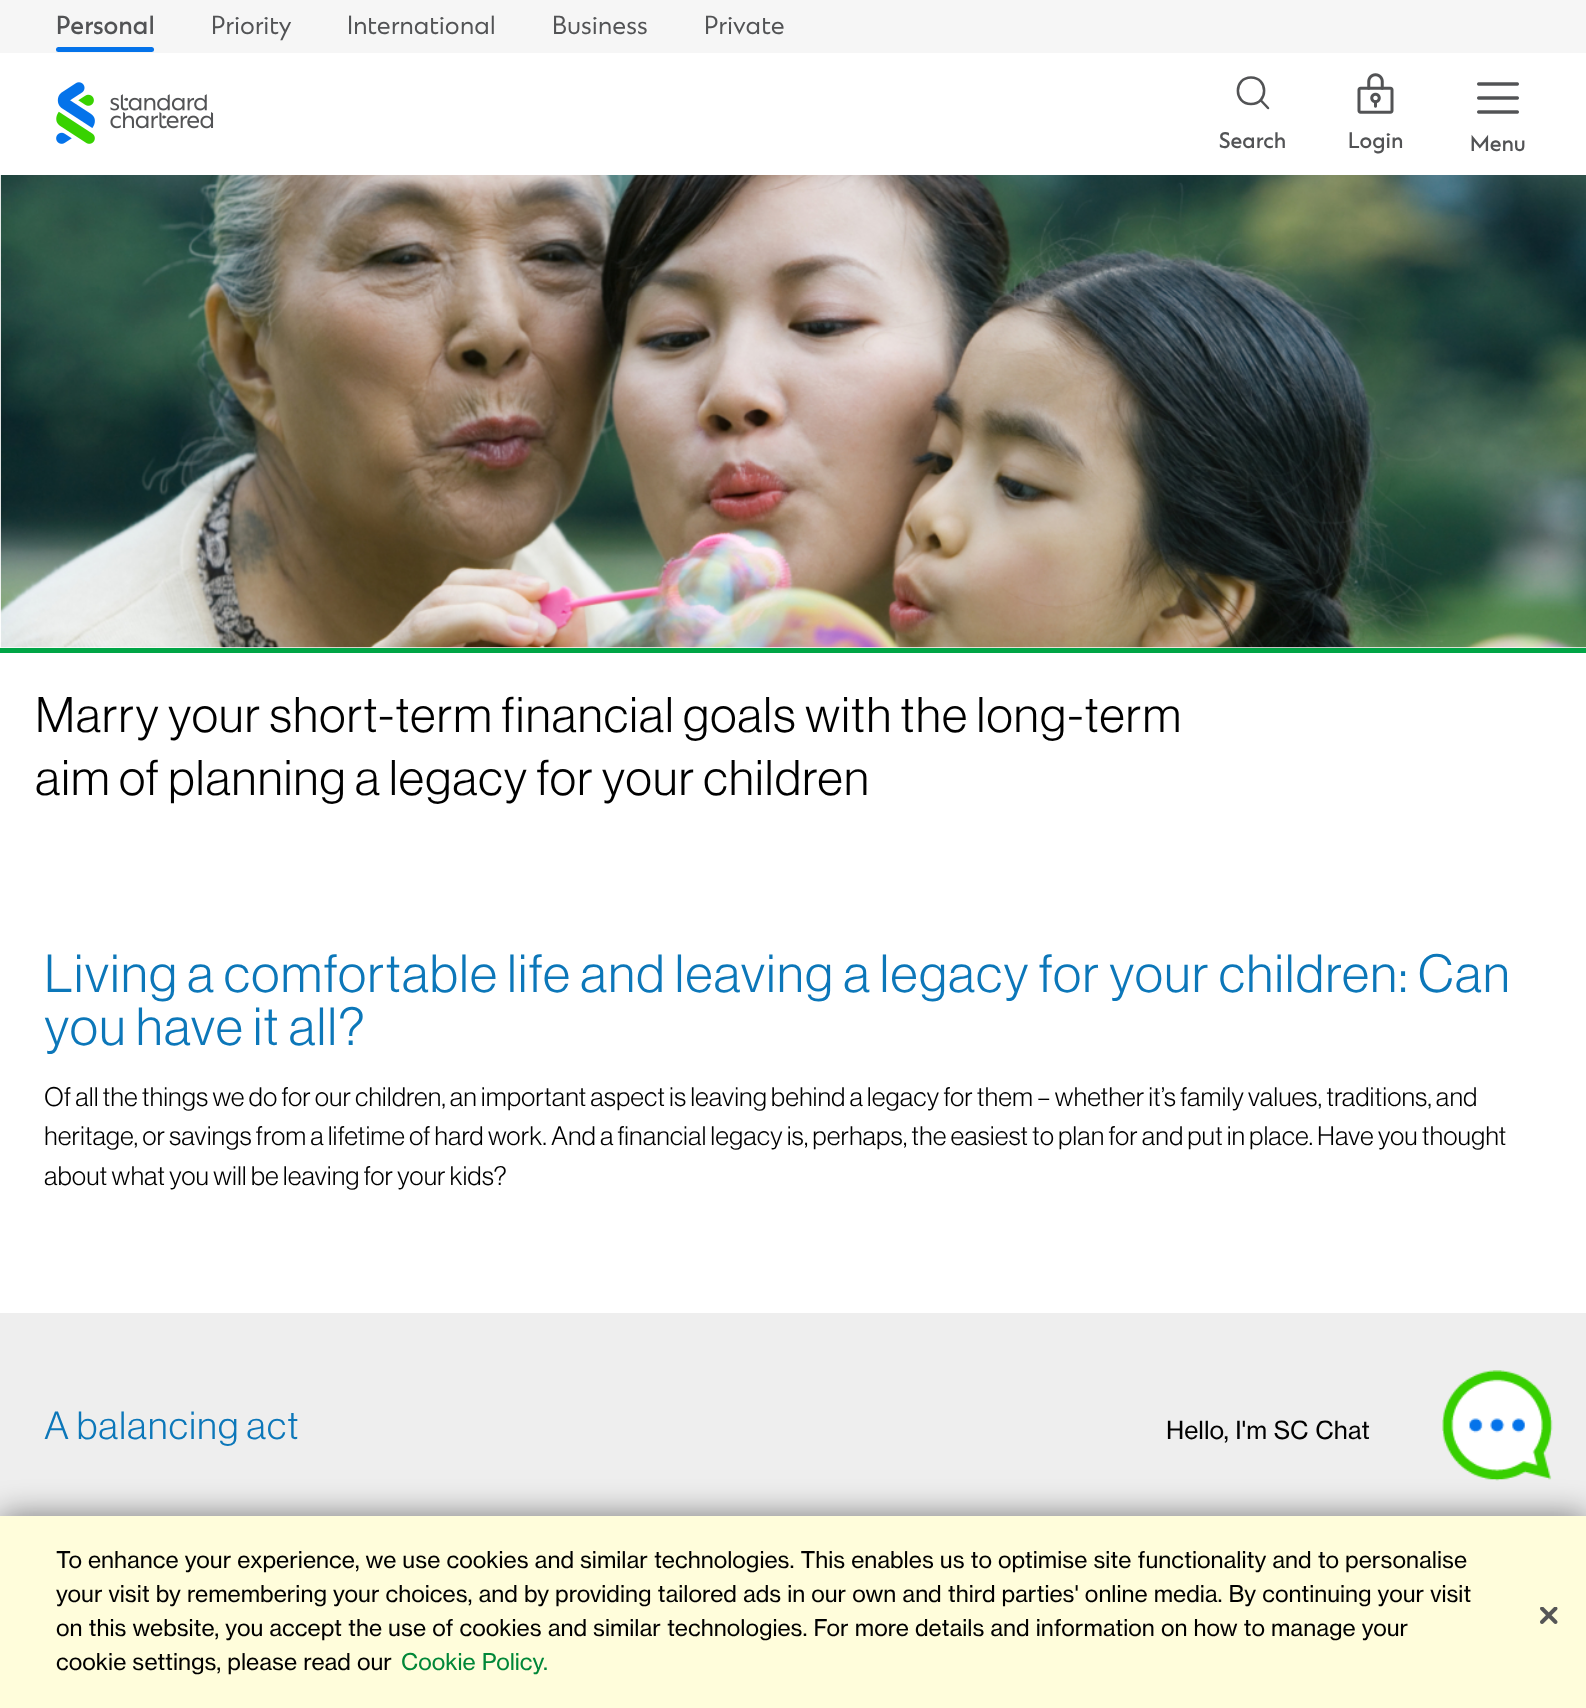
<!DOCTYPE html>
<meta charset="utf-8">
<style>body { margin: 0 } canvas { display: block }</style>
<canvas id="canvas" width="1586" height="1708"></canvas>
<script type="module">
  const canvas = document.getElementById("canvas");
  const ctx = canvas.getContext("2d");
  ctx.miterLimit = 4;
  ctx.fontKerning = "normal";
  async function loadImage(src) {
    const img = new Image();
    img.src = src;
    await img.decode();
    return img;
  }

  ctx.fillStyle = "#ffffff";
  ctx.fillRect(0, 0, 1586, 1708);
  ctx.fillStyle = "#f6f6f6";
  ctx.fillRect(0, 0, 1586, 53);
  ctx.font = "500 24.5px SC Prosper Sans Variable";
  ctx.fillStyle = "#525355";
  ctx.fillText("Personal", 56, 34);
  ctx.fillStyle = "#0473ea";
  ctx.beginPath();
  ctx.roundRect(56, 47, 98, 5, 2.5);
  ctx.fill();
  ctx.font = "24.5px SC Prosper Sans Variable";
  ctx.fillStyle = "#525355";
  ctx.fillText("Priority", 211, 34);
  ctx.fillText("International", 347, 34);
  ctx.fillText("Business", 552, 34);
  ctx.fillText("Private", 704, 34);
  ctx.drawImage(await loadImage("img1.png"), 56, 82, 158, 62);
  ctx.beginPath();
  ctx.moveTo(1251, 104);
  ctx.bezierCurveTo(1268.5, 104, 1268.5, 77.5, 1251, 77.5);
  ctx.bezierCurveTo(1233.5, 77.5, 1233.5, 104, 1251, 104);
  ctx.closePath();
  ctx.moveTo(1260.5, 100);
  ctx.lineTo(1268, 108);
  ctx.strokeStyle = "#525355";
  ctx.lineWidth = 2.5;
  ctx.lineCap = "round";
  ctx.lineJoin = "round";
  ctx.stroke();
  ctx.font = "500 21px SC Prosper Sans Variable";
  ctx.fillText("Search", 1219, 148);
  ctx.drawImage(await loadImage("img2.png"), 1357, 73, 37, 41);
  ctx.fillText("Login", 1348, 148);
  ctx.drawImage(await loadImage("img3.png"), 1477, 82, 42, 32);
  ctx.fillText("Menu", 1470, 151);
  ctx.drawImage(await loadImage("img4.png"), 0, 175, 1586, 473);
  ctx.fillStyle = "#00a546";
  ctx.fillRect(0, 648, 1586, 5);
  ctx.letterSpacing = "0.7px";
  ctx.font = "300 49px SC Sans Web";
  ctx.fillStyle = "#000000";
  ctx.fillText("Marry your short-term financial goals with the long-term", 35, 732);
  ctx.fillText("aim of planning a legacy for your children", 35, 795);
  ctx.fillStyle = "#eeeeee";
  ctx.fillRect(0, 1313, 1586, 203);
  ctx.letterSpacing = "0.88px";
  ctx.font = "300 52.5px SC Sans Web";
  ctx.fillStyle = "#0c77b9";
  ctx.fillText("Living a comfortable life and leaving a legacy for your children: Can", 44, 992);
  ctx.fillText("you have it all?", 44, 1045);
  ctx.letterSpacing = "0px";
  ctx.font = "300 26.25px SC Sans Web";
  ctx.fillStyle = "#000000";
  ctx.fillText("Of all the things we do for our children, an important aspect is leaving behind a legacy for them – whether it’s family values, traditions, and", 44, 1106);
  ctx.fillText("heritage, or savings from a lifetime of hard work. And a financial legacy is, perhaps, the easiest to plan for and put in place. Have you thought", 44, 1145);
  ctx.fillText("about what you will be leaving for your kids?", 44, 1185);
  ctx.letterSpacing = "0.88px";
  ctx.font = "300 38.5px SC Sans Web";
  ctx.fillStyle = "#0c77b9";
  ctx.fillText("A balancing act", 44, 1439);
  ctx.letterSpacing = "0px";
  ctx.font = "24.5px SC Sans Web";
  ctx.fillStyle = "#000000";
  ctx.fillText("Hello, I'm SC Chat", 1166, 1439);
  ctx.drawImage(await loadImage("img5.png"), 1442, 1370, 111, 111);
  ctx.fillStyle = "rgba(0, 0, 0, 0.5)";
  ctx.filter = "blur(16px)";
  ctx.beginPath();
  ctx.rect(0, 1516, 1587, 192);
  ctx.fill();
  ctx.filter = "none";
  ctx.fillStyle = "#fffddb";
  ctx.fillRect(0, 1516, 1586, 192);
  ctx.font = "22.75px SC Sans Web";
  ctx.fillStyle = "#000000";
  ctx.fillText("To enhance your experience, we use cookies and similar technologies. This enables us to optimise site functionality and to personalise", 56, 1568);
  ctx.fillText("your visit by remembering your choices, and by providing tailored ads in our own and third parties' online media. By continuing your visit", 56, 1602);
  ctx.fillText("on this website, you accept the use of cookies and similar technologies. For more details and information on how to manage your", 56, 1636);
  ctx.fillText("cookie settings, please read our", 56, 1670);
  ctx.fillStyle = "#008738";
  ctx.fillText("Cookie Policy.", 401, 1670);
  ctx.drawImage(await loadImage("img6.png"), 1540, 1607, 18, 17);
</script>
